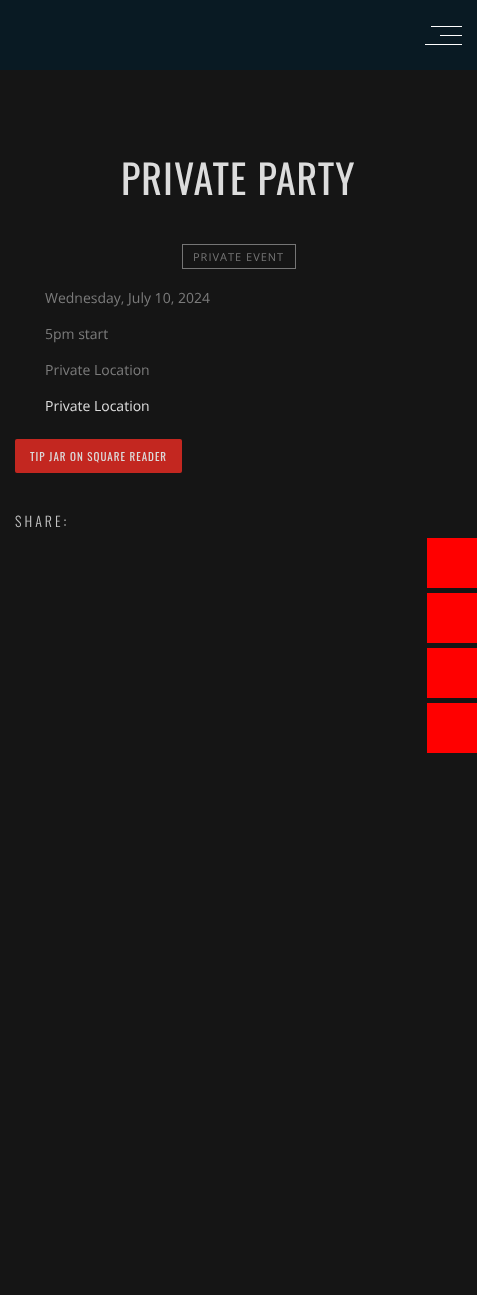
<!DOCTYPE html>
<meta charset="utf-8">
<style>body { margin: 0 } canvas { display: block }</style>
<canvas id="canvas" width="477" height="1295"></canvas>
<script type="module">
  const canvas = document.getElementById("canvas");
  const ctx = canvas.getContext("2d");
  ctx.miterLimit = 4;
  ctx.fontKerning = "normal";

  ctx.fillStyle = "#151515";
  ctx.fillRect(0, 0, 477, 1295);
  ctx.fillStyle = "#091a23";
  ctx.fillRect(0, 0, 477, 70);
  ctx.fillStyle = "#ffffff";
  ctx.fillRect(431, 26, 31, 1);
  ctx.fillRect(440, 35, 22, 1);
  ctx.fillRect(425, 44, 37, 1);
  ctx.letterSpacing = "1px";
  ctx.font = "40px Oswald";
  ctx.fillStyle = "#dcdcdc";
  ctx.fillText("PRIVATE PARTY", 121, 195);
  ctx.strokeStyle = "#757575";
  ctx.strokeRect(182.5, 244.5, 113, 24);
  ctx.font = "11px Open Sans";
  ctx.fillStyle = "#757575";
  ctx.fillText("PRIVATE EVENT", 193, 261);
  ctx.letterSpacing = "0px";
  ctx.font = "14px Open Sans";
  ctx.fillStyle = "#7b7b7b";
  ctx.fillText("Wednesday, July 10, 2024", 45, 303);
  ctx.fillText("5pm start", 45, 339);
  ctx.fillText("Private Location", 45, 375);
  ctx.fillStyle = "#dcdcdc";
  ctx.fillText("Private Location", 45, 411);
  ctx.fillStyle = "#c32720";
  ctx.beginPath();
  ctx.roundRect(15, 439, 167, 34, 2);
  ctx.fill();
  ctx.letterSpacing = "1px";
  ctx.font = "11px Oswald";
  ctx.fillStyle = "#dcdcdc";
  ctx.fillText("TIP JAR ON SQUARE READER", 30, 461);
  ctx.letterSpacing = "3px";
  ctx.font = "300 14px Oswald";
  ctx.fillStyle = "#c5c5c5";
  ctx.fillText("SHARE:", 15, 527);
  ctx.fillStyle = "#ff0000";
  ctx.fillRect(427, 538, 50, 50);
  ctx.fillRect(427, 593, 50, 50);
  ctx.fillRect(427, 648, 50, 50);
  ctx.fillRect(427, 703, 50, 50);
</script>
